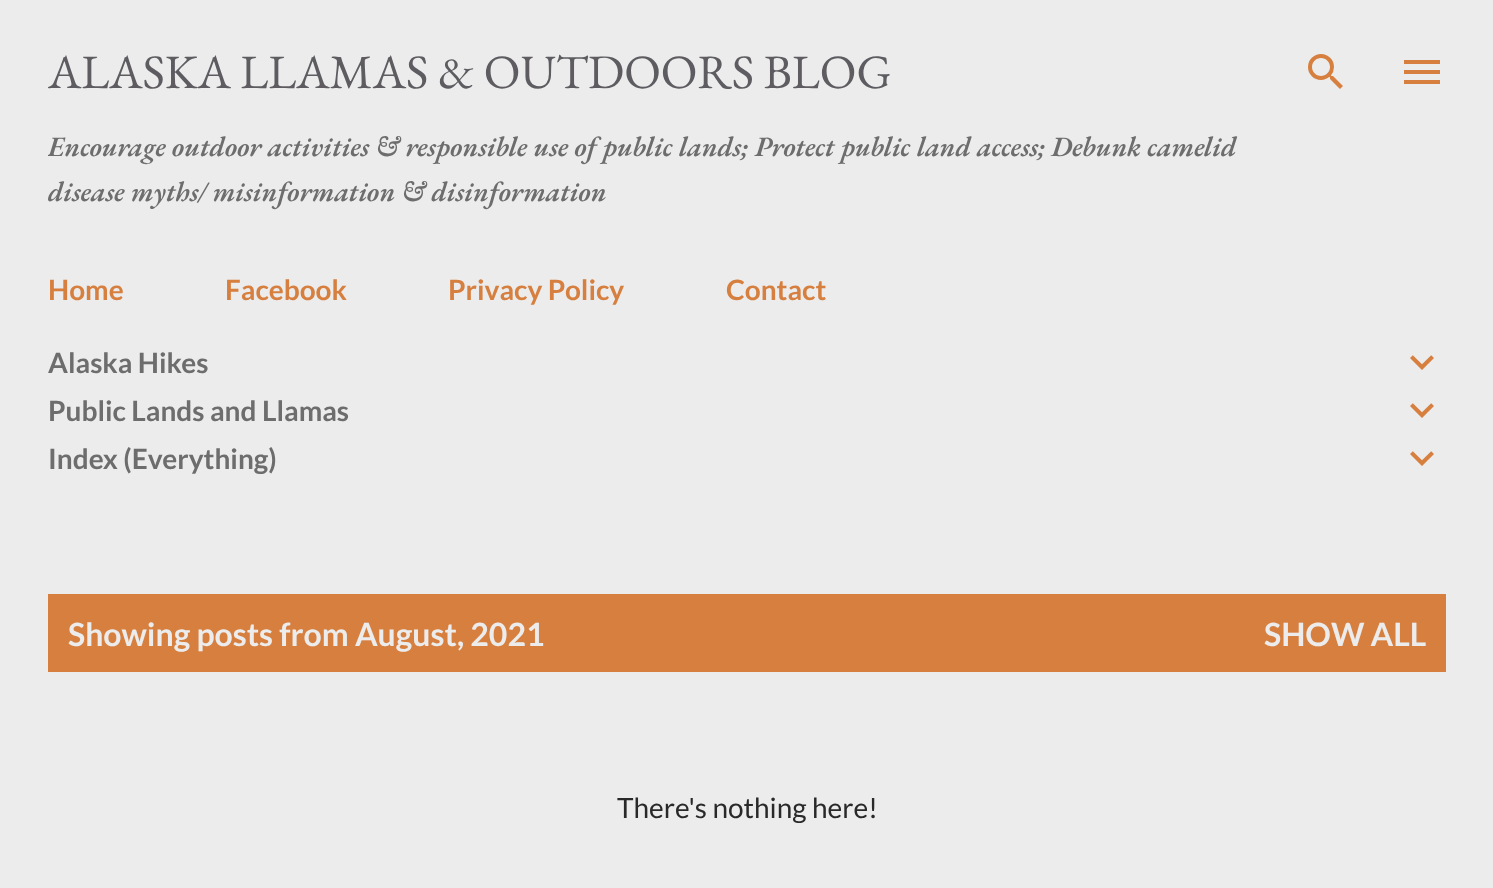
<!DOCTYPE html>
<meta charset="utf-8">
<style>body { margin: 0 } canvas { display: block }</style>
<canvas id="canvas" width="1493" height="888"></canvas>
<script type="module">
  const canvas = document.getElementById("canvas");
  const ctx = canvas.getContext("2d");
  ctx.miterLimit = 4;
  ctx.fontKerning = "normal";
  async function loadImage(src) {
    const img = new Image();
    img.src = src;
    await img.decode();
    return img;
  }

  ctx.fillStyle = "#ececec";
  ctx.fillRect(0, 0, 1493, 888);
  ctx.font = "48px EB Garamond";
  ctx.fillStyle = "#5e5c61";
  ctx.fillText("ALASKA LLAMAS & OUTDOORS BLOG", 48, 88);
  ctx.save();
  ctx.beginPath();
  ctx.rect(48, 48, 1302, 194);
  ctx.clip();
  ctx.font = "italic 600 28px EB Garamond";
  ctx.fillStyle = "#6d6d6d";
  ctx.fillText("Encourage outdoor activities & responsible use of public lands; Protect public land access; Debunk camelid", 48, 156);
  ctx.restore();
  ctx.font = "italic 600 28px EB Garamond";
  ctx.fillStyle = "#6d6d6d";
  ctx.fillText("disease myths/ misinformation & disinformation", 48, 201);
  ctx.drawImage(await loadImage("img1.png"), 1308, 54, 35, 35);
  ctx.drawImage(await loadImage("img2.png"), 1404, 60, 36, 24);
  ctx.font = "bold 28px Lato";
  ctx.fillStyle = "#d67f3f";
  ctx.fillText("Home", 48, 300);
  ctx.fillText("Facebook", 225, 300);
  ctx.fillText("Privacy Policy", 448, 300);
  ctx.fillText("Contact", 726, 300);
  ctx.fillStyle = "#6d6d6d";
  ctx.fillText("Alaska Hikes", 48, 373);
  ctx.drawImage(await loadImage("img3.png"), 1410, 355, 24, 15);
  ctx.fillText("Public Lands and Llamas", 48, 421);
  ctx.drawImage(await loadImage("img3.png"), 1410, 403, 24, 15);
  ctx.fillText("Index (Everything)", 48, 469);
  ctx.drawImage(await loadImage("img3.png"), 1410, 451, 24, 15);
  ctx.fillStyle = "#d67f3f";
  ctx.fillRect(48, 594, 1398, 78);
  ctx.font = "bold 32px Lato";
  ctx.fillStyle = "#ececec";
  ctx.fillText("Showing posts from August, 2021", 68, 646);
  ctx.fillText("SHOW ALL", 1264, 646);
  ctx.font = "28px Lato";
  ctx.fillStyle = "#292929";
  ctx.fillText("There's nothing here!", 617, 818);
</script>
